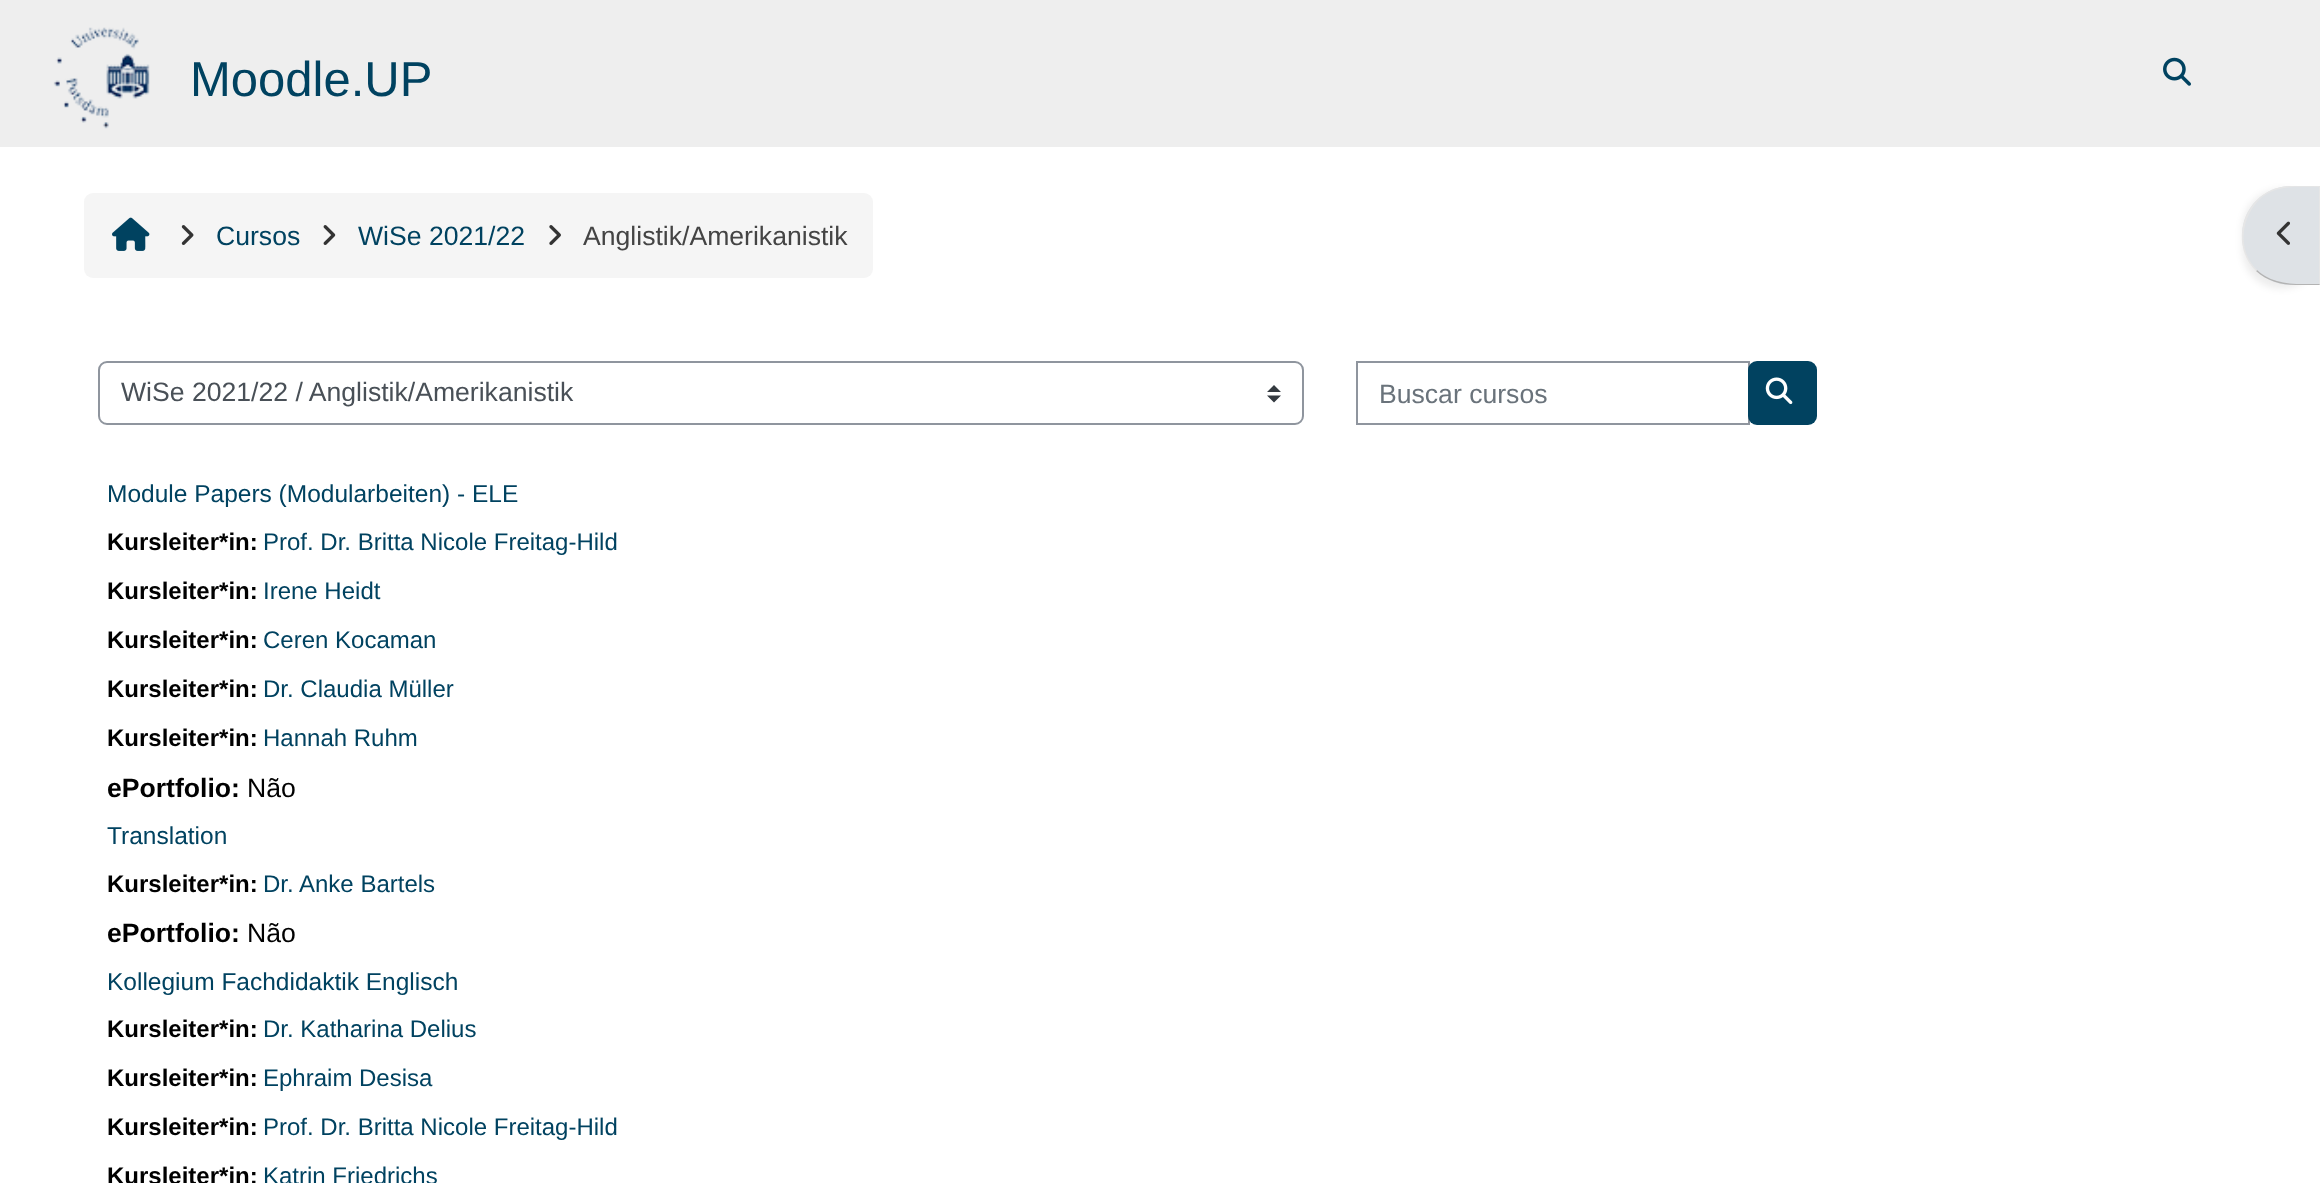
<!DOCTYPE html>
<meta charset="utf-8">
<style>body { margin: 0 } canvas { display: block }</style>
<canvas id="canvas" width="2320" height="1183"></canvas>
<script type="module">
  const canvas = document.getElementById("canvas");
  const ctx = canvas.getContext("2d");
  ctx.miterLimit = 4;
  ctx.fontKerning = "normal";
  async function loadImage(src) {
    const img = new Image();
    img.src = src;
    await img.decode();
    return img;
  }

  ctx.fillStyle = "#ffffff";
  ctx.fillRect(0, 0, 2320, 1183);
  ctx.fillStyle = "#eeeeee";
  ctx.fillRect(0, 0, 2320, 147);
  ctx.drawImage(await loadImage("img1.png"), 53, 27, 97, 102);
  ctx.font = "49px Liberation Sans";
  ctx.fillStyle = "#004260";
  ctx.fillText("Moodle.UP", 190, 96);
  ctx.drawImage(await loadImage("img2.png"), 2163, 57, 28, 29);
  ctx.fillStyle = "#f5f5f5";
  ctx.beginPath();
  ctx.roundRect(84, 193, 789, 85, 9);
  ctx.fill();
  ctx.drawImage(await loadImage("img3.png"), 112, 217, 38, 34);
  ctx.drawImage(await loadImage("img4.png"), 181, 225, 13, 20);
  ctx.font = "26.6px Liberation Sans";
  ctx.fillStyle = "#004260";
  ctx.fillText("Cursos", 216, 245);
  ctx.drawImage(await loadImage("img5.png"), 323, 225, 13, 20);
  ctx.fillText("WiSe 2021/22", 358, 245);
  ctx.drawImage(await loadImage("img6.png"), 549, 225, 12, 20);
  ctx.fillStyle = "#444444";
  ctx.fillText("Anglistik/Amerikanistik", 583, 245);
  ctx.fillStyle = "#343a40";
  ctx.beginPath();
  ctx.moveTo(1274, 385);
  ctx.lineTo(1267, 392);
  ctx.lineTo(1281, 392);
  ctx.closePath();
  ctx.moveTo(1274, 402.5);
  ctx.lineTo(1267, 395.5);
  ctx.lineTo(1281, 395.5);
  ctx.closePath();
  ctx.fill();
  ctx.beginPath();
  ctx.roundRect(99, 362, 1204, 62, 8);
  ctx.strokeStyle = "#8f959e";
  ctx.lineWidth = 2;
  ctx.stroke();
  ctx.fillStyle = "#495057";
  ctx.fillText("WiSe 2021/22 / Anglistik/Amerikanistik", 121, 401);
  ctx.strokeRect(1357, 362, 392, 62);
  ctx.fillStyle = "#6a737b";
  ctx.fillText("Buscar cursos", 1379, 403);
  ctx.fillStyle = "#014260";
  ctx.beginPath();
  ctx.roundRect(1748, 361, 69, 64, 9);
  ctx.fill();
  ctx.drawImage(await loadImage("img7.png"), 1765, 377, 28, 28);
  ctx.font = "24.5px Liberation Sans";
  ctx.fillStyle = "#004260";
  ctx.fillText("Module Papers (Modularbeiten) - ELE", 107, 502);
  ctx.font = "bold 24px Liberation Sans";
  ctx.fillStyle = "#000000";
  ctx.fillText("Kursleiter*in:", 107, 550);
  ctx.font = "24px Liberation Sans";
  ctx.fillStyle = "#004260";
  ctx.fillText("Prof. Dr. Britta Nicole Freitag-Hild", 263, 550);
  ctx.font = "bold 24px Liberation Sans";
  ctx.fillStyle = "#000000";
  ctx.fillText("Kursleiter*in:", 107, 599);
  ctx.font = "24px Liberation Sans";
  ctx.fillStyle = "#004260";
  ctx.fillText("Irene Heidt", 263, 599);
  ctx.font = "bold 24px Liberation Sans";
  ctx.fillStyle = "#000000";
  ctx.fillText("Kursleiter*in:", 107, 648);
  ctx.font = "24px Liberation Sans";
  ctx.fillStyle = "#004260";
  ctx.fillText("Ceren Kocaman", 263, 648);
  ctx.font = "bold 24px Liberation Sans";
  ctx.fillStyle = "#000000";
  ctx.fillText("Kursleiter*in:", 107, 697);
  ctx.font = "24px Liberation Sans";
  ctx.fillStyle = "#004260";
  ctx.fillText("Dr. Claudia Müller", 263, 697);
  ctx.font = "bold 24px Liberation Sans";
  ctx.fillStyle = "#000000";
  ctx.fillText("Kursleiter*in:", 107, 746);
  ctx.font = "24px Liberation Sans";
  ctx.fillStyle = "#004260";
  ctx.fillText("Hannah Ruhm", 263, 746);
  ctx.font = "bold 26.6px Liberation Sans";
  ctx.fillStyle = "#000000";
  ctx.fillText("ePortfolio:", 107, 797);
  ctx.font = "26.6px Liberation Sans";
  ctx.fillText("Não", 247, 797);
  ctx.font = "24.5px Liberation Sans";
  ctx.fillStyle = "#004260";
  ctx.fillText("Translation", 107, 844);
  ctx.font = "bold 24px Liberation Sans";
  ctx.fillStyle = "#000000";
  ctx.fillText("Kursleiter*in:", 107, 892);
  ctx.font = "24px Liberation Sans";
  ctx.fillStyle = "#004260";
  ctx.fillText("Dr. Anke Bartels", 263, 892);
  ctx.font = "bold 26.6px Liberation Sans";
  ctx.fillStyle = "#000000";
  ctx.fillText("ePortfolio:", 107, 942);
  ctx.font = "26.6px Liberation Sans";
  ctx.fillText("Não", 247, 942);
  ctx.font = "24.5px Liberation Sans";
  ctx.fillStyle = "#004260";
  ctx.fillText("Kollegium Fachdidaktik Englisch", 107, 990);
  ctx.font = "bold 24px Liberation Sans";
  ctx.fillStyle = "#000000";
  ctx.fillText("Kursleiter*in:", 107, 1037);
  ctx.font = "24px Liberation Sans";
  ctx.fillStyle = "#004260";
  ctx.fillText("Dr. Katharina Delius", 263, 1037);
  ctx.font = "bold 24px Liberation Sans";
  ctx.fillStyle = "#000000";
  ctx.fillText("Kursleiter*in:", 107, 1086);
  ctx.font = "24px Liberation Sans";
  ctx.fillStyle = "#004260";
  ctx.fillText("Ephraim Desisa", 263, 1086);
  ctx.font = "bold 24px Liberation Sans";
  ctx.fillStyle = "#000000";
  ctx.fillText("Kursleiter*in:", 107, 1135);
  ctx.font = "24px Liberation Sans";
  ctx.fillStyle = "#004260";
  ctx.fillText("Prof. Dr. Britta Nicole Freitag-Hild", 263, 1135);
  ctx.font = "bold 24px Liberation Sans";
  ctx.fillStyle = "#000000";
  ctx.fillText("Kursleiter*in:", 107, 1184);
  ctx.font = "24px Liberation Sans";
  ctx.fillStyle = "#004260";
  ctx.fillText("Katrin Friedrichs", 263, 1184);
  ctx.fillStyle = "rgba(0, 0, 0, 0.07)";
  ctx.filter = "blur(3.5px)";
  ctx.beginPath();
  ctx.roundRect(2242, 189, 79, 100, 49);
  ctx.fill();
  ctx.filter = "none";
  ctx.fillStyle = "#dee2e6";
  ctx.beginPath();
  ctx.moveTo(2291, 186);
  ctx.lineTo(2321, 186);
  ctx.lineTo(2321, 285);
  ctx.lineTo(2291, 285);
  ctx.bezierCurveTo(2264, 285, 2242, 263, 2242, 236);
  ctx.lineTo(2242, 235);
  ctx.bezierCurveTo(2242, 208, 2264, 186, 2291, 186);
  ctx.closePath();
  ctx.fill();
  ctx.fillStyle = "#e6e6e6";
  ctx.beginPath();
  ctx.moveTo(2292, 186);
  ctx.bezierCurveTo(2277, 186, 2265, 192, 2257, 200);
  ctx.lineTo(2258, 201);
  ctx.bezierCurveTo(2274, 184, 2297, 187, 2319, 187);
  ctx.lineTo(2320, 186);
  ctx.closePath();
  ctx.fill();
  ctx.beginPath();
  ctx.moveTo(2320, 285);
  ctx.lineTo(2320, 186);
  ctx.lineTo(2319, 187);
  ctx.lineTo(2319, 284);
  ctx.closePath();
  ctx.fill();
  ctx.fillStyle = "#b3b3b3";
  ctx.beginPath();
  ctx.moveTo(2296, 285);
  ctx.bezierCurveTo(2281, 285, 2267, 281, 2256, 271);
  ctx.lineTo(2257, 270);
  ctx.bezierCurveTo(2274, 286, 2298, 284, 2319, 284);
  ctx.lineTo(2320, 285);
  ctx.closePath();
  ctx.fill();
  ctx.fillStyle = "#e6e6e6";
  ctx.beginPath();
  ctx.moveTo(2257, 200);
  ctx.bezierCurveTo(2238, 219, 2236, 251, 2256, 271);
  ctx.lineTo(2257, 270);
  ctx.bezierCurveTo(2238, 251, 2240, 220, 2258, 201);
  ctx.closePath();
  ctx.fill();
  ctx.drawImage(await loadImage("img8.png"), 2276, 221, 14, 24);
</script>
